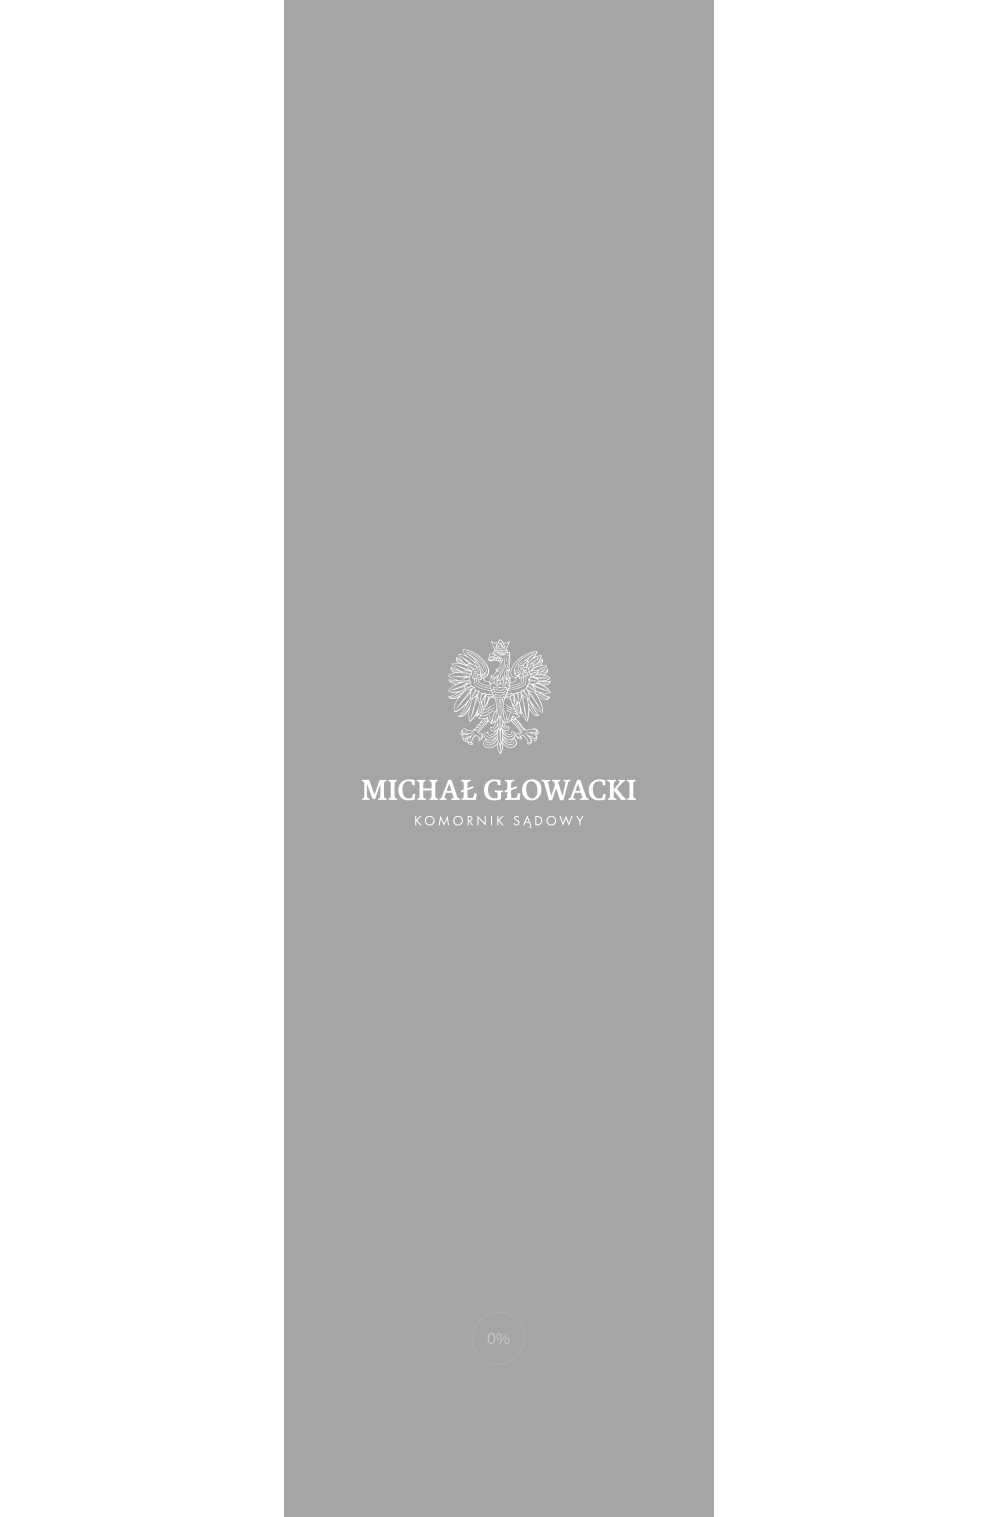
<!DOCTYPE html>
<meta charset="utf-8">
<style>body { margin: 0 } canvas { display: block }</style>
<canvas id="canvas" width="998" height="1517"></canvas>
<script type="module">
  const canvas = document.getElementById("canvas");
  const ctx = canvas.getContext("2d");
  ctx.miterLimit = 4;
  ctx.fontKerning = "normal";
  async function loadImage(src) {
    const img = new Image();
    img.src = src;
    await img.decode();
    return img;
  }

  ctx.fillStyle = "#ffffff";
  ctx.fillRect(0, 0, 998, 1517);
  ctx.fillStyle = "#4d4848";
  ctx.fillRect(284, 0, 430, 1517);
  ctx.drawImage(await loadImage("img1.png"), 362, 639, 274, 189);
  ctx.beginPath();
  ctx.arc(498.5, 1338.5, 26, 0, Math.PI * 2);
  ctx.strokeStyle = "#63605e";
  ctx.stroke();
  ctx.font = "16px Liberation Sans";
  ctx.fillStyle = "#8b8b8b";
  ctx.fillText("0%", 487, 1344);
  ctx.fillStyle = "rgba(255, 255, 255, 0.5)";
  ctx.fillRect(284, 0, 430, 1517);
</script>
